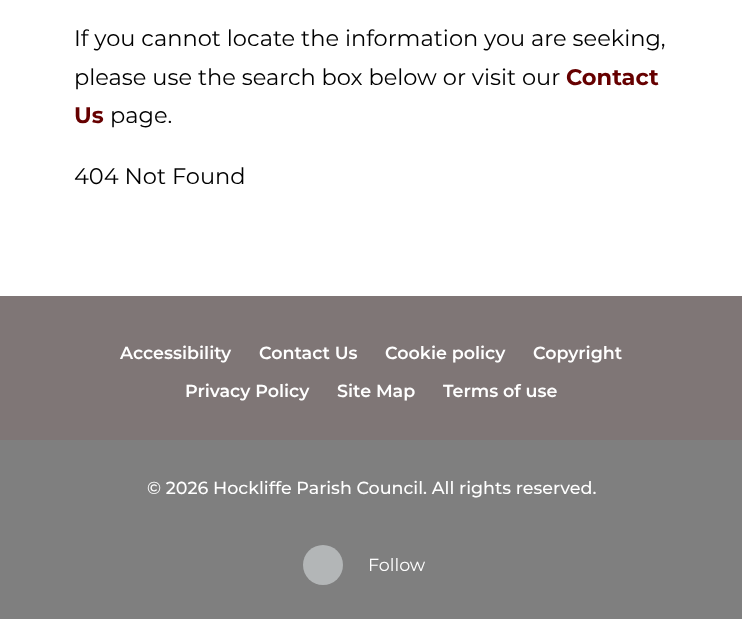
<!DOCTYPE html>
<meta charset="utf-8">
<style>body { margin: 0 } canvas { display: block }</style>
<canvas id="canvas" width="742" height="619"></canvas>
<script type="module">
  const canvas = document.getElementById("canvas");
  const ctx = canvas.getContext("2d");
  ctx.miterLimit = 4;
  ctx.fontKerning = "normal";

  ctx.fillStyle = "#ffffff";
  ctx.fillRect(0, 0, 742, 619);
  ctx.font = "100 22.5px Montserrat";
  ctx.fillStyle = "#000000";
  ctx.fillText("If you cannot locate the information you are seeking,", 74, 46);
  ctx.fillText("please use the search box below or visit our", 74, 85);
  ctx.font = "100 22.5px 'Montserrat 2'";
  ctx.fillStyle = "#660000";
  ctx.fillText("Contact", 566, 85);
  ctx.fillText("Us", 74, 123);
  ctx.font = "100 22.5px Montserrat";
  ctx.fillStyle = "#000000";
  ctx.fillText("page.", 110, 123);
  ctx.fillText("404 Not Found", 74, 184);
  ctx.fillStyle = "#7f7676";
  ctx.fillRect(0, 296, 742, 144);
  ctx.font = "100 17.5px 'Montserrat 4'";
  ctx.fillStyle = "#ffffff";
  ctx.fillText("Accessibility", 120, 359);
  ctx.fillText("Contact Us", 259, 359);
  ctx.fillText("Cookie policy", 385, 359);
  ctx.fillText("Copyright", 533, 359);
  ctx.fillText("Privacy Policy", 185, 397);
  ctx.fillText("Site Map", 337, 397);
  ctx.fillText("Terms of use", 443, 397);
  ctx.fillStyle = "#7f7f7f";
  ctx.fillRect(0, 440, 742, 179);
  ctx.font = "100 17.5px 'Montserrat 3'";
  ctx.fillStyle = "#ffffff";
  ctx.fillText("© 2026 Hockliffe Parish Council. All rights reserved.", 147, 494);
  ctx.fillStyle = "#b3b6b7";
  ctx.beginPath();
  ctx.arc(323, 565, 20, 0, Math.PI * 2);
  ctx.fill();
  ctx.font = "100 17.5px Montserrat";
  ctx.fillStyle = "#ffffff";
  ctx.fillText("Follow", 368, 571);
</script>
